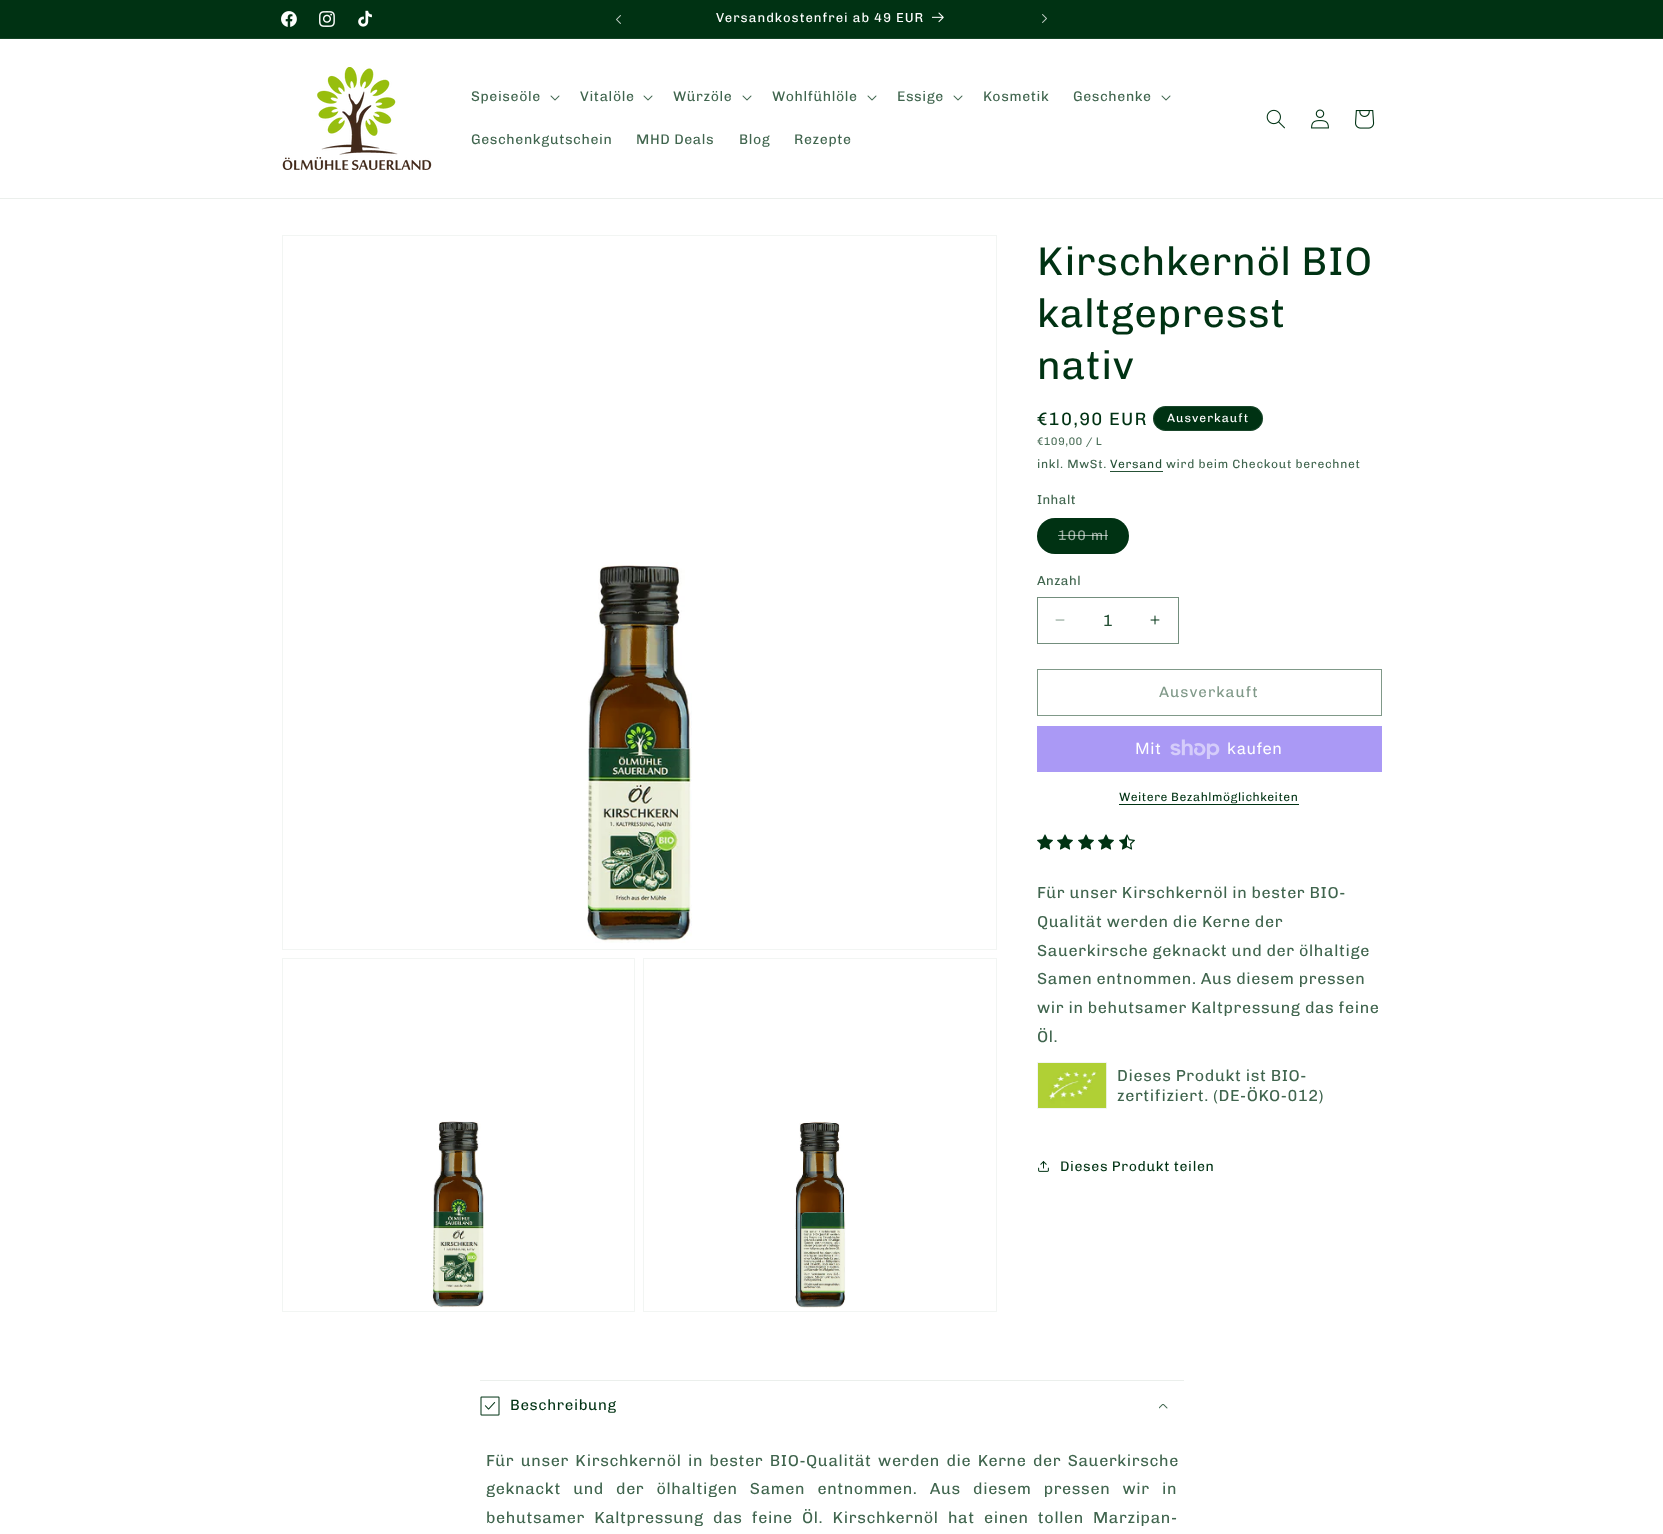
<!DOCTYPE html>
<meta charset="utf-8">
<style>body { margin: 0 } canvas { display: block }</style>
<canvas id="canvas" width="1663" height="1534"></canvas>
<script type="module">
  const canvas = document.getElementById("canvas");
  const ctx = canvas.getContext("2d");
  ctx.miterLimit = 4;
  ctx.fontKerning = "normal";
  async function loadImage(src) {
    const img = new Image();
    img.src = src;
    await img.decode();
    return img;
  }

  ctx.fillStyle = "#ffffff";
  ctx.fillRect(0, 0, 1663, 1534);
  ctx.fillStyle = "#003213";
  ctx.fillRect(0, 0, 1663, 38);
  ctx.fillStyle = "#144226";
  ctx.fillRect(0, 38, 1663, 1);
  ctx.drawImage(await loadImage("img1.png"), 281, 11, 16, 16);
  ctx.drawImage(await loadImage("img2.png"), 319, 11, 16, 16);
  ctx.drawImage(await loadImage("img3.png"), 358, 10, 14, 17);
  ctx.drawImage(await loadImage("img4.png"), 616, 15, 5, 9);
  ctx.letterSpacing = "1px";
  ctx.font = "13px Chivo";
  ctx.fillStyle = "#ffffff";
  ctx.fillText("Versandkostenfrei ab 49 EUR", 716, 22);
  ctx.drawImage(await loadImage("img5.png"), 932, 12, 12, 11);
  ctx.drawImage(await loadImage("img6.png"), 1042, 14, 5, 9);
  ctx.fillStyle = "#ebefec";
  ctx.fillRect(0, 198, 1663, 1);
  ctx.drawImage(await loadImage("img7.png"), 282, 67, 150, 103);
  ctx.letterSpacing = "0.6px";
  ctx.font = "14px Chivo";
  ctx.fillStyle = "#40654e";
  ctx.fillText("Speiseöle", 471, 101);
  ctx.drawImage(await loadImage("img8.png"), 550, 95, 10, 6);
  ctx.fillText("Vitalöle", 580, 101);
  ctx.drawImage(await loadImage("img8.png"), 643, 95, 10, 6);
  ctx.fillText("Würzöle", 673, 101);
  ctx.drawImage(await loadImage("img8.png"), 742, 95, 10, 6);
  ctx.fillText("Wohlfühlöle", 772, 101);
  ctx.drawImage(await loadImage("img8.png"), 867, 95, 10, 6);
  ctx.fillText("Essige", 897, 101);
  ctx.drawImage(await loadImage("img8.png"), 953, 95, 10, 6);
  ctx.fillText("Kosmetik", 983, 101);
  ctx.fillText("Geschenke", 1073, 101);
  ctx.drawImage(await loadImage("img8.png"), 1161, 95, 10, 6);
  ctx.fillText("Geschenkgutschein", 471, 144);
  ctx.fillText("MHD Deals", 636, 144);
  ctx.fillText("Blog", 739, 144);
  ctx.fillText("Rezepte", 794, 144);
  ctx.drawImage(await loadImage("img9.png"), 1266, 109, 19, 20);
  ctx.drawImage(await loadImage("img10.png"), 1311, 109, 18, 20);
  ctx.drawImage(await loadImage("img11.png"), 1355, 110, 20, 19);
  ctx.strokeStyle = "#f2f5f3";
  ctx.strokeRect(282.5, 235.5, 714, 714);
  ctx.drawImage(await loadImage("img12.png"), 587, 562, 105, 381);
  ctx.strokeRect(282.5, 958.5, 352, 353);
  ctx.drawImage(await loadImage("img13.png"), 432, 1121, 52, 187);
  ctx.strokeRect(643.5, 958.5, 353, 353);
  ctx.drawImage(await loadImage("img14.png"), 795, 1121, 51, 187);
  ctx.font = "40px Chivo";
  ctx.fillStyle = "#003213";
  ctx.fillText("Kirschkernöl BIO", 1037, 275);
  ctx.fillText("kaltgepresst", 1037, 327);
  ctx.fillText("nativ", 1037, 379);
  ctx.letterSpacing = "1.25px";
  ctx.font = "18px Chivo";
  ctx.fillText("€10,90 EUR", 1037, 425);
  ctx.letterSpacing = "0.4px";
  ctx.font = "11px Chivo";
  ctx.fillStyle = "#4d705a";
  ctx.fillText("€109,00 / L", 1037, 445);
  ctx.fillStyle = "#003213";
  ctx.beginPath();
  ctx.roundRect(1153, 406, 110, 25, 12.5);
  ctx.fill();
  ctx.beginPath();
  ctx.roundRect(1153.5, 406.5, 109, 24, 12);
  ctx.strokeStyle = "rgba(255, 255, 255, 0.1)";
  ctx.stroke();
  ctx.letterSpacing = "1px";
  ctx.font = "12px Chivo";
  ctx.fillStyle = "#ffffff";
  ctx.fillText("Ausverkauft", 1167, 422);
  ctx.letterSpacing = "0.7px";
  ctx.fillStyle = "#40654e";
  ctx.fillText("inkl. MwSt.", 1037, 468);
  ctx.fillStyle = "#265136";
  ctx.fillText("Versand", 1110, 468);
  ctx.fillRect(1110, 471, 53, 1);
  ctx.fillStyle = "#40654e";
  ctx.fillText("wird beim Checkout berechnet", 1166, 468);
  ctx.letterSpacing = "0.4px";
  ctx.font = "13px Chivo";
  ctx.fillText("Inhalt", 1037, 504);
  ctx.fillStyle = "#003213";
  ctx.beginPath();
  ctx.roundRect(1037, 518, 92, 36, 18);
  ctx.fill();
  ctx.beginPath();
  ctx.roundRect(1037.5, 518.5, 91, 35, 17.5);
  ctx.strokeStyle = "rgba(0, 50, 19, 0.1)";
  ctx.stroke();
  ctx.letterSpacing = "1px";
  ctx.font = "14px Chivo";
  ctx.fillStyle = "#99ada1";
  ctx.fillText("100 ml", 1058, 540);
  ctx.fillStyle = "rgba(255, 255, 255, 0.6)";
  ctx.fillRect(1058, 535, 50, 1);
  ctx.letterSpacing = "0.4px";
  ctx.font = "13px Chivo";
  ctx.fillStyle = "#40654e";
  ctx.fillText("Anzahl", 1037, 585);
  ctx.drawImage(await loadImage("img15.png"), 1055, 619, 10, 2);
  ctx.drawImage(await loadImage("img16.png"), 1150, 615, 10, 10);
  ctx.strokeStyle = "#738e7d";
  ctx.strokeRect(1037.5, 597.5, 141, 46);
  ctx.letterSpacing = "0px";
  ctx.font = "16px Chivo";
  ctx.fillStyle = "#265136";
  ctx.fillText("1", 1103, 626);
  ctx.strokeStyle = "#809989";
  ctx.strokeRect(1037.5, 669.5, 344, 46);
  ctx.letterSpacing = "1px";
  ctx.font = "15px Chivo";
  ctx.fillStyle = "#809989";
  ctx.fillText("Ausverkauft", 1159, 697);
  ctx.fillStyle = "#aa99f5";
  ctx.fillRect(1037, 726, 345, 46);
  ctx.letterSpacing = "0.6px";
  ctx.font = "16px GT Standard";
  ctx.fillStyle = "#ffffff";
  ctx.fillText("Mit", 1135, 754);
  ctx.drawImage(await loadImage("img17.png"), 1170, 739, 50, 20);
  ctx.fillText("kaufen", 1227, 754);
  ctx.letterSpacing = "0.5px";
  ctx.font = "12px Chivo";
  ctx.fillStyle = "#003213";
  ctx.fillText("Weitere Bezahlmöglichkeiten", 1119, 801);
  ctx.fillRect(1119, 804, 180, 1);
  ctx.drawImage(await loadImage("img18.png"), 1037, 834, 16, 16);
  ctx.drawImage(await loadImage("img18.png"), 1057, 834, 16, 16);
  ctx.drawImage(await loadImage("img18.png"), 1078, 834, 16, 16);
  ctx.drawImage(await loadImage("img18.png"), 1098, 834, 16, 16);
  ctx.drawImage(await loadImage("img19.png"), 1119, 834, 16, 16);
  ctx.letterSpacing = "0.6px";
  ctx.font = "16px Chivo";
  ctx.fillStyle = "#40654e";
  ctx.fillText("Für unser Kirschkernöl in bester BIO-", 1037, 898);
  ctx.fillText("Qualität werden die Kerne der", 1037, 927);
  ctx.fillText("Sauerkirsche geknackt und der ölhaltige", 1037, 956);
  ctx.fillText("Samen entnommen. Aus diesem pressen", 1037, 984);
  ctx.fillText("wir in behutsamer Kaltpressung das feine", 1037, 1013);
  ctx.fillText("Öl.", 1037, 1042);
  ctx.strokeStyle = "#f2f5f3";
  ctx.strokeRect(1037.5, 1062.5, 69, 46);
  ctx.drawImage(await loadImage("img20.png"), 1038, 1063, 69, 45);
  ctx.fillText("Dieses Produkt ist BIO-", 1117, 1081);
  ctx.fillText("zertifiziert. (DE-ÖKO-012)", 1117, 1101);
  ctx.drawImage(await loadImage("img21.png"), 1038, 1161, 11, 11);
  ctx.font = "14px Chivo";
  ctx.fillStyle = "#003213";
  ctx.fillText("Dieses Produkt teilen", 1060, 1171);
  ctx.fillStyle = "#ebefec";
  ctx.fillRect(480, 1380, 704, 1);
  ctx.drawImage(await loadImage("img22.png"), 480, 1396, 20, 20);
  ctx.font = "15px Chivo";
  ctx.fillStyle = "#003213";
  ctx.fillText("Beschreibung", 510, 1410);
  ctx.drawImage(await loadImage("img23.png"), 1159, 1404, 9, 5);
  ctx.wordSpacing = "2.25px";
  ctx.font = "16px Chivo";
  ctx.fillStyle = "#40654e";
  ctx.fillText("Für unser Kirschkernöl in bester BIO-Qualität werden die Kerne der Sauerkirsche", 486, 1466);
  ctx.wordSpacing = "8px";
  ctx.fillText("geknackt und der ölhaltigen Samen entnommen. Aus diesem pressen wir in", 486, 1494);
  ctx.wordSpacing = "5px";
  ctx.fillText("behutsamer Kaltpressung das feine Öl. Kirschkernöl hat einen tollen Marzipan-", 486, 1523);
</script>
